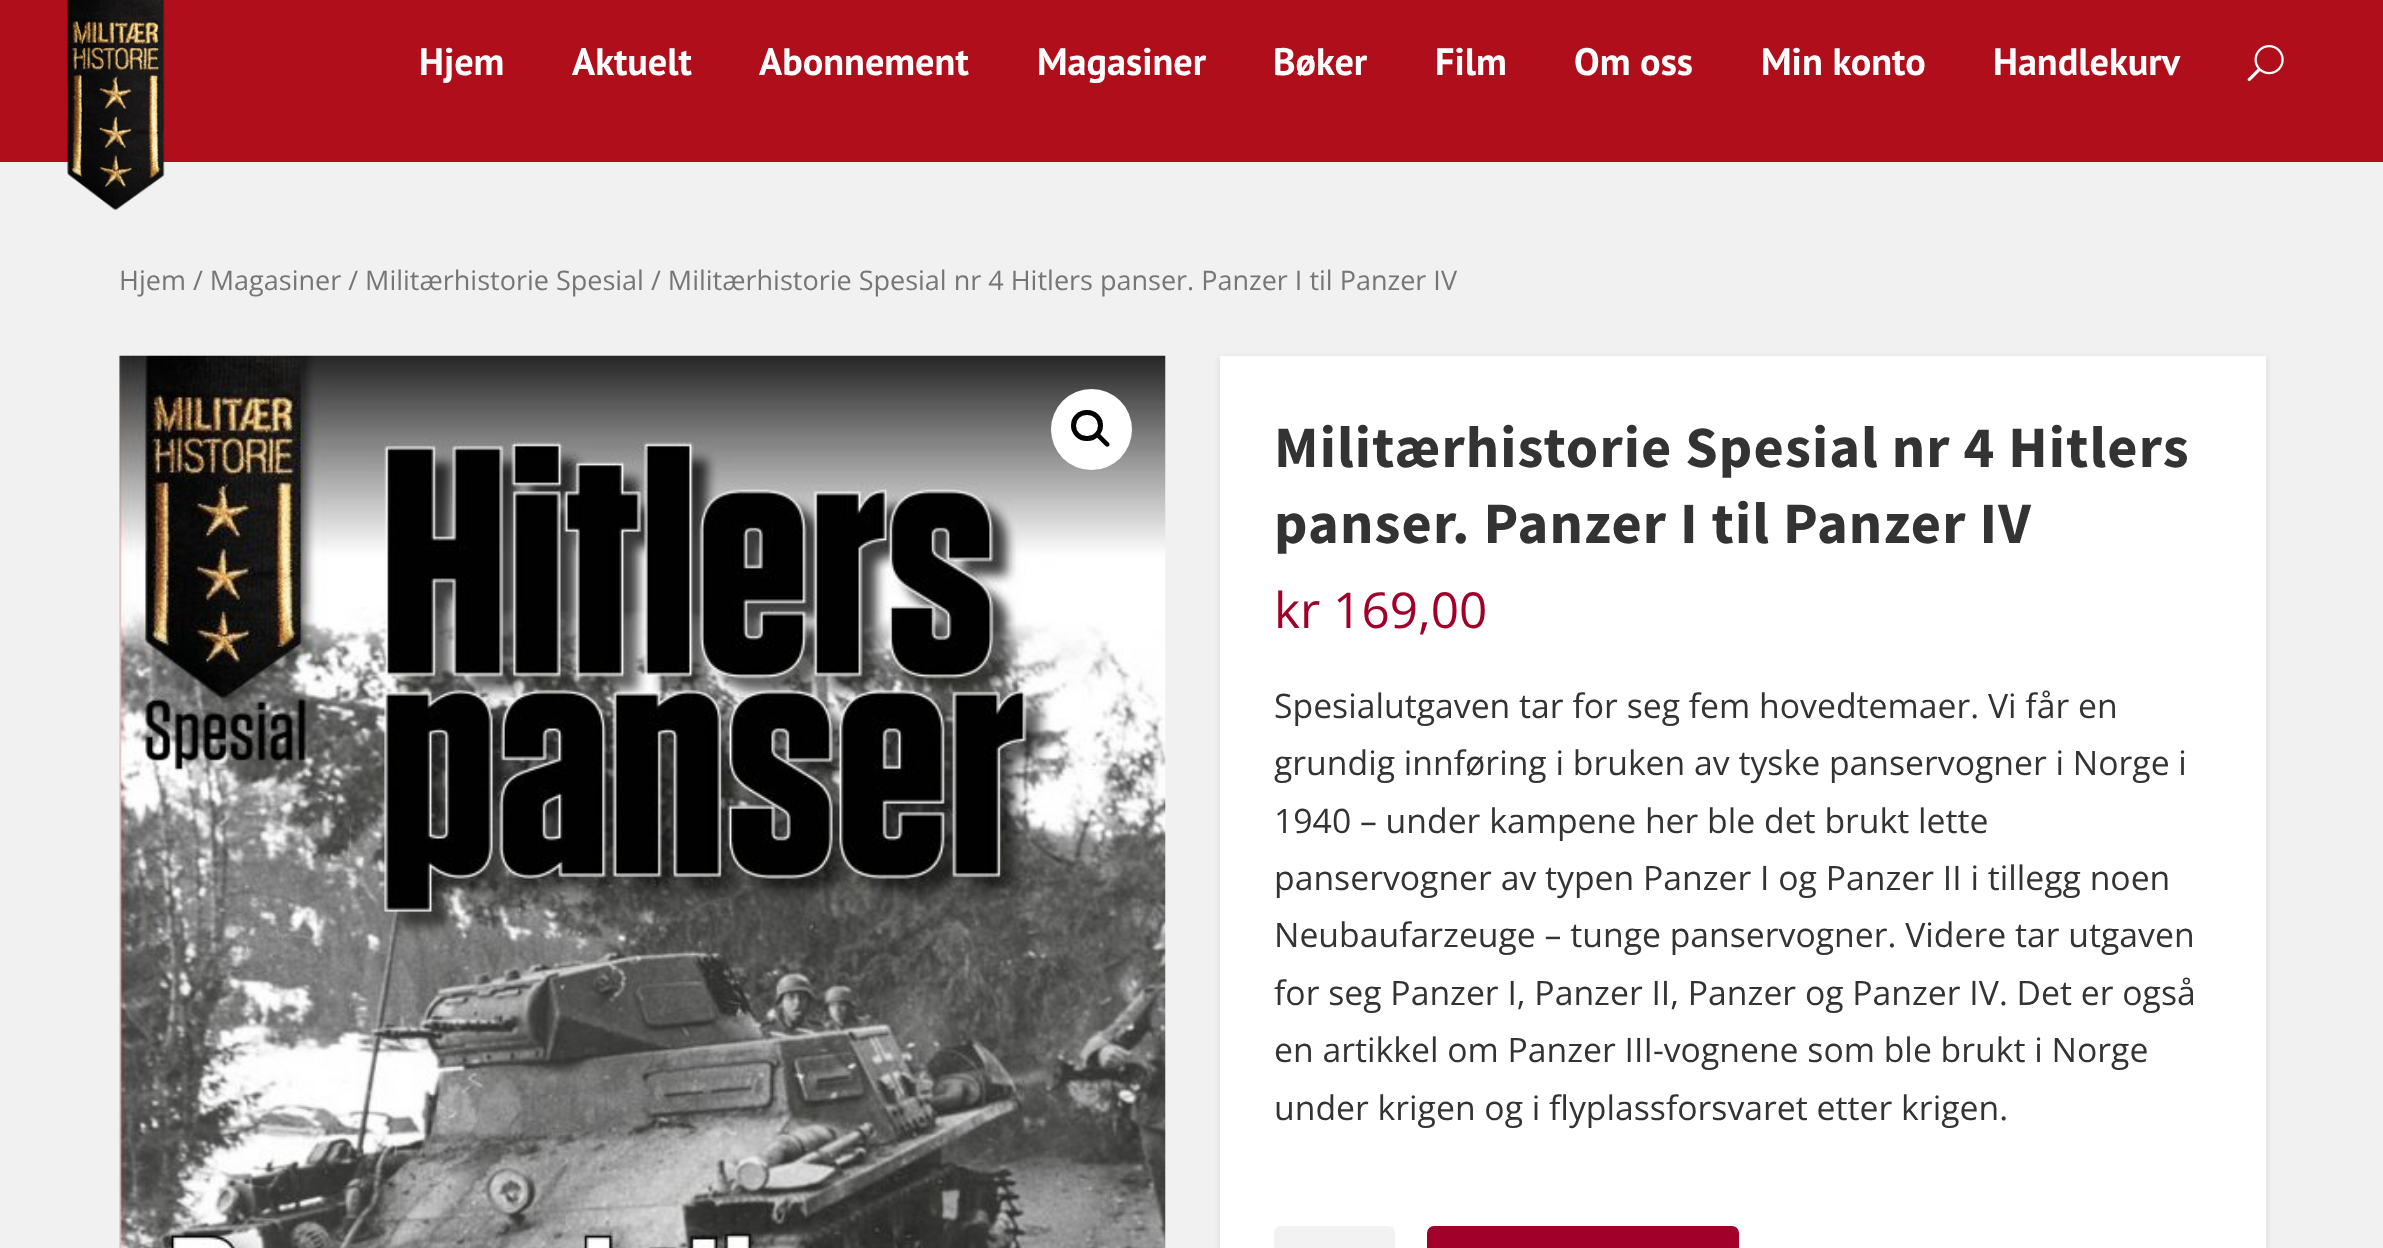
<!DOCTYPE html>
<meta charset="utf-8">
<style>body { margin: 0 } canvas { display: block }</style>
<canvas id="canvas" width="2383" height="1248"></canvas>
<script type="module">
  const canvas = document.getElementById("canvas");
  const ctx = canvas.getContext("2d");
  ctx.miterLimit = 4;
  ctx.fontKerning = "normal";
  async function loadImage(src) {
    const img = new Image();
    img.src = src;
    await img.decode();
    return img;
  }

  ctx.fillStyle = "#f1f1f1";
  ctx.fillRect(0, 0, 2383, 1248);
  ctx.fillStyle = "#b10e1b";
  ctx.fillRect(0, 0, 2383, 162);
  ctx.drawImage(await loadImage("img1.png"), 67, 0, 98, 210);
  ctx.font = "bold 38.25px PT Sans";
  ctx.fillStyle = "#ffffff";
  ctx.fillText("Hjem", 419, 75);
  ctx.fillText("Aktuelt", 572, 75);
  ctx.fillText("Abonnement", 759, 75);
  ctx.fillText("Magasiner", 1037, 75);
  ctx.fillText("Bøker", 1273, 75);
  ctx.fillText("Film", 1435, 75);
  ctx.fillText("Om oss", 1574, 75);
  ctx.fillText("Min konto", 1761, 75);
  ctx.fillText("Handlekurv", 1993, 75);
  ctx.drawImage(await loadImage("img2.png"), 2247, 45, 37, 37);
  ctx.font = "27px Open Sans";
  ctx.fillStyle = "#767676";
  ctx.fillText("Hjem / Magasiner / Militærhistorie Spesial / Militærhistorie Spesial nr 4 Hitlers panser. Panzer I til Panzer IV", 119, 290);
  ctx.drawImage(await loadImage("img3.png"), 119, 355, 1047, 893);
  ctx.fillStyle = "#ffffff";
  ctx.beginPath();
  ctx.arc(1091.5, 429.5, 40.5, 0, Math.PI * 2);
  ctx.fill();
  ctx.beginPath();
  ctx.roundRect(1073.5, 412.5, 27, 26, 13);
  ctx.strokeStyle = "#000000";
  ctx.lineWidth = 5;
  ctx.stroke();
  ctx.fillStyle = "#000000";
  ctx.beginPath();
  ctx.moveTo(1096, 433.5);
  ctx.bezierCurveTo(1097, 432.5, 1098.5, 432.5, 1099.5, 433.5);
  ctx.lineTo(1109, 443);
  ctx.bezierCurveTo(1109.5, 444, 1109.5, 445.5, 1109, 446);
  ctx.bezierCurveTo(1108, 447, 1106.5, 447, 1105.5, 446);
  ctx.lineTo(1096, 436.5);
  ctx.bezierCurveTo(1095.5, 436, 1095.5, 434.5, 1096, 433.5);
  ctx.closePath();
  ctx.fill();
  ctx.fillStyle = "rgba(0, 0, 0, 0.1)";
  ctx.filter = "blur(3.5px)";
  ctx.beginPath();
  ctx.rect(1220, 358, 1046, 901);
  ctx.fill();
  ctx.filter = "none";
  ctx.fillStyle = "#ffffff";
  ctx.fillRect(1220, 356, 1046, 892);
  ctx.letterSpacing = "1.1px";
  ctx.font = "bold 58.5px Source Sans Pro";
  ctx.fillStyle = "#333333";
  ctx.fillText("Militærhistorie Spesial nr 4 Hitlers", 1274, 467);
  ctx.fillText("panser. Panzer I til Panzer IV", 1274, 543);
  ctx.letterSpacing = "0px";
  ctx.font = "49.5px Open Sans";
  ctx.fillStyle = "#a0002a";
  ctx.fillText("kr 169,00", 1274, 628);
  ctx.font = "33.75px Open Sans";
  ctx.fillStyle = "#333333";
  ctx.fillText("Spesialutgaven tar for seg fem hovedtemaer. Vi får en", 1274, 718);
  ctx.fillText("grundig innføring i bruken av tyske panservogner i Norge i", 1274, 775);
  ctx.fillText("1940 – under kampene her ble det brukt lette", 1274, 833);
  ctx.fillText("panservogner av typen Panzer I og Panzer II i tillegg noen", 1274, 890);
  ctx.fillText("Neubaufarzeuge – tunge panservogner. Videre tar utgaven", 1274, 947);
  ctx.fillText("for seg Panzer I, Panzer II, Panzer og Panzer IV. Det er også", 1274, 1005);
  ctx.fillText("en artikkel om Panzer III-vognene som ble brukt i Norge", 1274, 1062);
  ctx.fillText("under krigen og i flyplassforsvaret etter krigen.", 1274, 1120);
  ctx.fillStyle = "#f2f2f2";
  ctx.beginPath();
  ctx.roundRect(1274, 1226, 121, 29, 7);
  ctx.fill();
  ctx.fillStyle = "#a0002a";
  ctx.beginPath();
  ctx.roundRect(1427, 1226, 312, 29, 7);
  ctx.fill();
</script>
